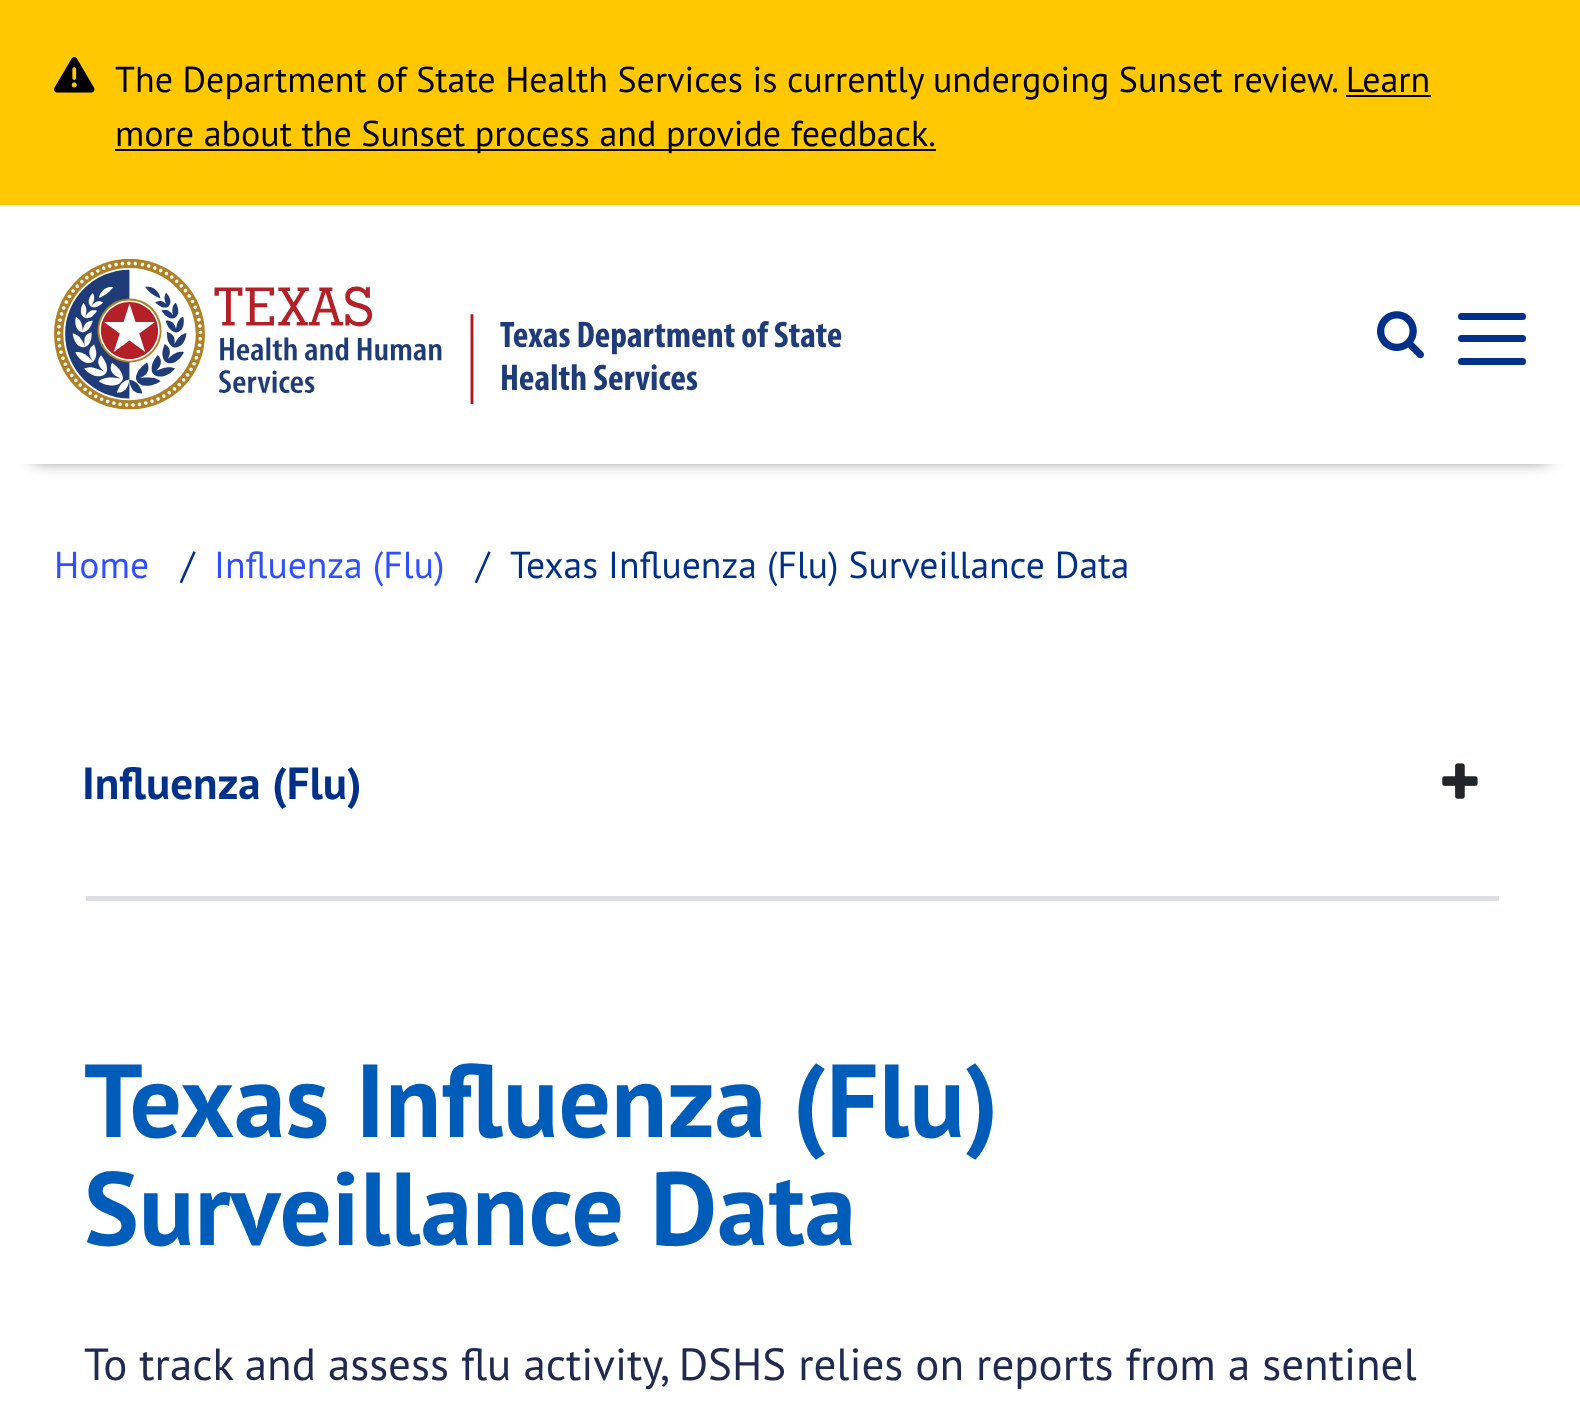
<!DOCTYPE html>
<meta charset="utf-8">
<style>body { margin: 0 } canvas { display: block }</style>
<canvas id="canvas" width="1580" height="1415"></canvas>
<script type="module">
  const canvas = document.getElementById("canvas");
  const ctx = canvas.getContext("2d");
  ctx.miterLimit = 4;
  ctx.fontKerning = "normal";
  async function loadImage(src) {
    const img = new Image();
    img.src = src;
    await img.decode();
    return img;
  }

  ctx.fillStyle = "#ffffff";
  ctx.fillRect(0, 0, 1580, 1415);
  ctx.save();
  ctx.beginPath();
  ctx.moveTo(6, 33);
  ctx.lineTo(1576, 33);
  ctx.lineTo(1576, 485);
  ctx.lineTo(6, 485);
  ctx.closePath();
  ctx.moveTo(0, 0);
  ctx.lineTo(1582, 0);
  ctx.lineTo(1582, 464);
  ctx.lineTo(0, 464);
  ctx.closePath();
  ctx.clip("evenodd");
  ctx.fillStyle = "#111111";
  ctx.filter = "blur(9px)";
  ctx.beginPath();
  ctx.rect(34, 61, 1514, 396);
  ctx.fill();
  ctx.filter = "none";
  ctx.restore();
  ctx.fillStyle = "#ffc800";
  ctx.fillRect(0, 0, 1580, 205);
  ctx.drawImage(await loadImage("img1.png"), 54, 57, 41, 36);
  ctx.font = "36px PT Sans";
  ctx.fillStyle = "#000000";
  ctx.fillText("The Department of State Health Services is currently undergoing Sunset review. Learn", 115, 92);
  ctx.fillRect(115, 149, 821, 2);
  ctx.fillText("more about the Sunset process and provide feedback.", 115, 146);
  ctx.fillRect(1346, 95, 85, 2);
  ctx.drawImage(await loadImage("img2.png"), 54, 259, 788, 151);
  ctx.drawImage(await loadImage("img3.png"), 1377, 311, 47, 48);
  ctx.fillStyle = "#003087";
  ctx.beginPath();
  ctx.roundRect(1458, 313, 68, 7, 3.5);
  ctx.fill();
  ctx.beginPath();
  ctx.roundRect(1458, 335, 68, 7, 3.5);
  ctx.fill();
  ctx.beginPath();
  ctx.roundRect(1458, 358, 68, 7, 3.5);
  ctx.fill();
  ctx.font = "37.6px PT Sans";
  ctx.fillStyle = "#304ffe";
  ctx.fillText("Home", 54, 578);
  ctx.fillStyle = "#003087";
  ctx.fillText("/", 181, 578);
  ctx.fillStyle = "#304ffe";
  ctx.fillText("Influenza (Flu)", 214, 578);
  ctx.fillStyle = "#003087";
  ctx.fillText("/", 476, 578);
  ctx.fillText("Texas Influenza (Flu) Surveillance Data", 510, 578);
  ctx.font = "bold 45px PT Sans";
  ctx.fillText("Influenza (Flu)", 82, 799);
  ctx.drawImage(await loadImage("img4.png"), 1442, 763, 36, 36);
  ctx.fillStyle = "#dcdee1";
  ctx.fillRect(86, 896, 1413, 5);
  ctx.font = "bold 103.5px PT Sans";
  ctx.fillStyle = "#005cb9";
  ctx.fillText("Texas Influenza (Flu)", 84, 1137);
  ctx.fillText("Surveillance Data", 84, 1245);
  ctx.font = "45px PT Sans";
  ctx.fillStyle = "#20294f";
  ctx.fillText("To track and assess flu activity, DSHS relies on reports from a sentinel", 84, 1380);
</script>
